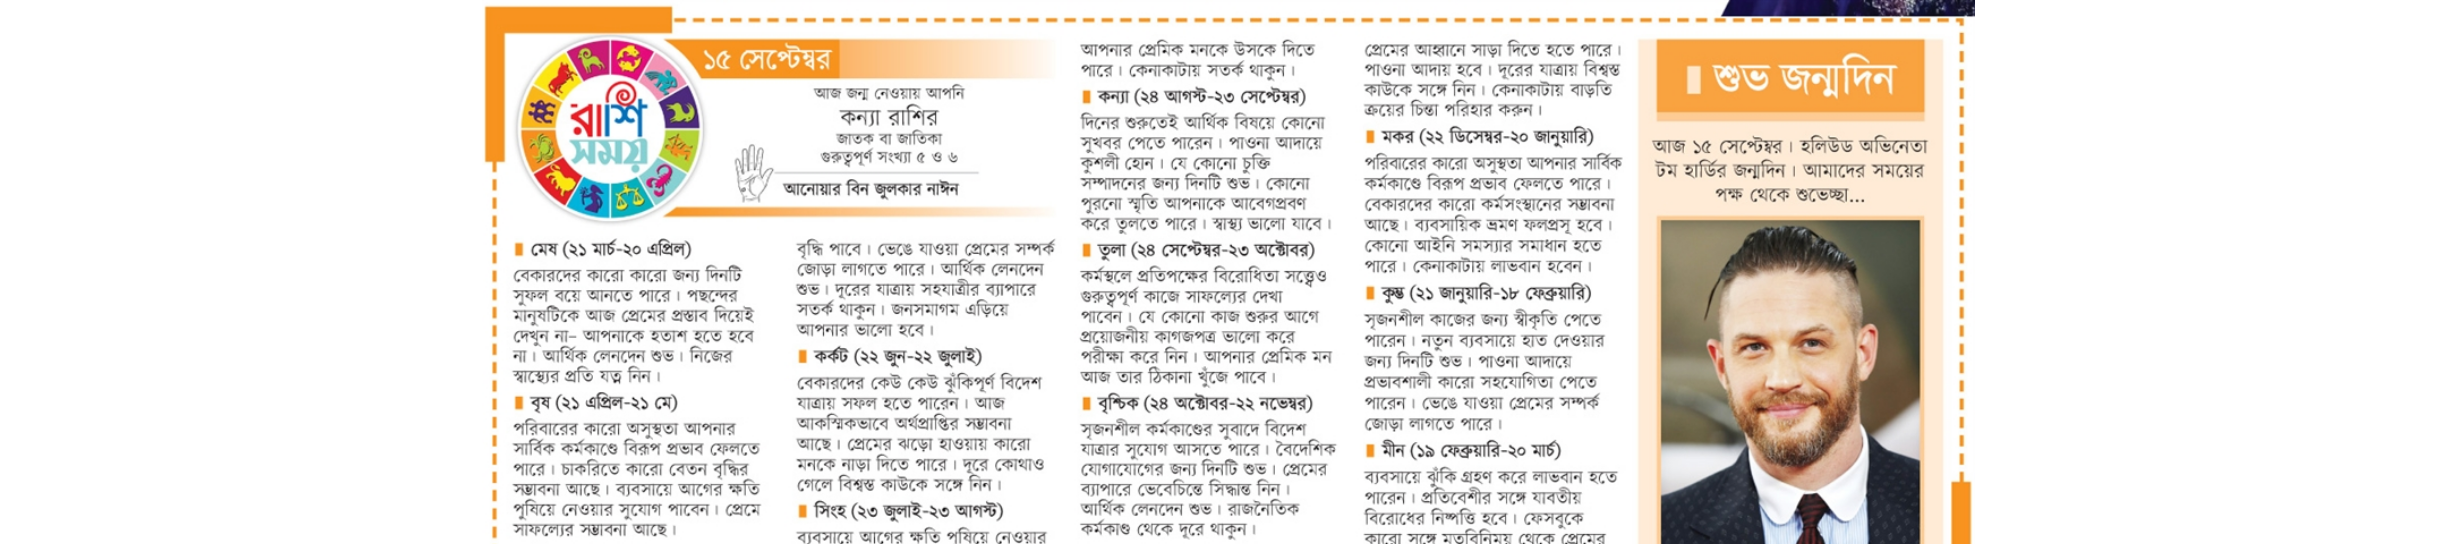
<!DOCTYPE html>
<meta charset="utf-8">
<style>body { margin: 0 } canvas { display: block }</style>
<canvas id="canvas" width="2451" height="544"></canvas>
<script type="module">
  const canvas = document.getElementById("canvas");
  const ctx = canvas.getContext("2d");
  ctx.miterLimit = 4;
  ctx.fontKerning = "normal";
  async function loadImage(src) {
    const img = new Image();
    img.src = src;
    await img.decode();
    return img;
  }

  ctx.fillStyle = "#ffffff";
  ctx.fillRect(0, 0, 2451, 544);
  ctx.drawImage(await loadImage("img1.png"), 482, 0, 1493, 544);
</script>
